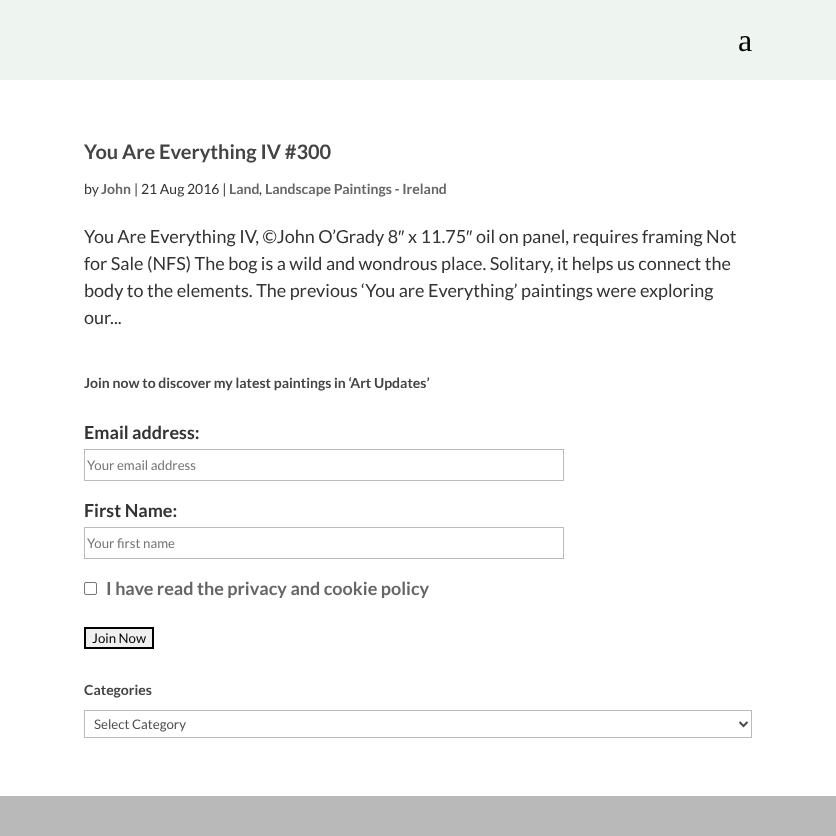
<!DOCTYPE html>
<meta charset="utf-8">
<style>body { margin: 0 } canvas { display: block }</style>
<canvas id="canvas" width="836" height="836"></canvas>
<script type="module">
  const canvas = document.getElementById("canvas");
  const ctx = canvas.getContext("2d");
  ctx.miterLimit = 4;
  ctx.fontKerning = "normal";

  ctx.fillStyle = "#ffffff";
  ctx.fillRect(0, 0, 836, 836);
  ctx.fillStyle = "#eef4f0";
  ctx.fillRect(0, 0, 836, 80);
  ctx.font = "32px Liberation Serif";
  ctx.fillStyle = "#000000";
  ctx.fillText("a", 738, 51);
  ctx.font = "bold 20px Lato";
  ctx.fillStyle = "#444444";
  ctx.fillText("You Are Everything IV #300", 84, 159);
  ctx.font = "14px Lato";
  ctx.fillStyle = "#333333";
  ctx.fillText("by", 84, 194);
  ctx.font = "bold 14px Lato";
  ctx.fillStyle = "#666666";
  ctx.fillText("John", 101, 194);
  ctx.font = "14px Lato";
  ctx.fillStyle = "#333333";
  ctx.fillText("| 21 Aug 2016 |", 134, 194);
  ctx.font = "bold 14px Lato";
  ctx.fillStyle = "#666666";
  ctx.fillText("Land", 229, 194);
  ctx.font = "14px Lato";
  ctx.fillStyle = "#333333";
  ctx.fillText(",", 259, 194);
  ctx.font = "bold 14px Lato";
  ctx.fillStyle = "#666666";
  ctx.fillText("Landscape Paintings - Ireland", 265, 194);
  ctx.font = "18px Lato";
  ctx.fillStyle = "#333333";
  ctx.fillText("You Are Everything IV, ©John O’Grady 8", 84, 243);
  ctx.font = "18px Liberation Sans";
  ctx.fillText("″", 398, 243);
  ctx.font = "18px Lato";
  ctx.fillText("x 11.75", 408, 243);
  ctx.font = "18px Liberation Sans";
  ctx.fillText("″", 466, 243);
  ctx.font = "18px Lato";
  ctx.fillText("oil on panel, requires framing Not", 476, 243);
  ctx.fillText("for Sale (NFS) The bog is a wild and wondrous place. Solitary, it helps us connect the", 84, 270);
  ctx.fillText("body to the elements. The previous ‘You are Everything’ paintings were exploring", 84, 297);
  ctx.fillText("our...", 84, 324);
  ctx.font = "bold 14px Lato";
  ctx.fillStyle = "#444444";
  ctx.fillText("Join now to discover my latest paintings in ‘Art Updates’", 84, 388);
  ctx.font = "bold 18px Lato";
  ctx.fillStyle = "#333333";
  ctx.fillText("Email address:", 84, 439);
  ctx.strokeStyle = "#bbbbbb";
  ctx.strokeRect(84.5, 449.5, 479, 31);
  ctx.font = "13.25px Lato";
  ctx.fillStyle = "#757575";
  ctx.fillText("Your email address", 87, 470);
  ctx.font = "bold 18px Lato";
  ctx.fillStyle = "#333333";
  ctx.fillText("First Name:", 84, 517);
  ctx.strokeRect(84.5, 527.5, 479, 31);
  ctx.font = "13.25px Lato";
  ctx.fillStyle = "#757575";
  ctx.fillText("Your first name", 87, 548);
  ctx.beginPath();
  ctx.roundRect(84.5, 582.5, 12, 12, 1.5);
  ctx.strokeStyle = "#767676";
  ctx.stroke();
  ctx.font = "bold 18px Lato";
  ctx.fillStyle = "#666666";
  ctx.fillText("I have read the privacy and cookie policy", 106, 595);
  ctx.fillStyle = "#efefef";
  ctx.beginPath();
  ctx.rect(85, 628, 68, 20);
  ctx.fill();
  ctx.strokeStyle = "#000000";
  ctx.lineWidth = 2;
  ctx.stroke();
  ctx.font = "13.25px Lato";
  ctx.fillStyle = "#000000";
  ctx.fillText("Join Now", 92, 643);
  ctx.font = "bold 14px Lato";
  ctx.fillStyle = "#444444";
  ctx.fillText("Categories", 84, 695);
  ctx.strokeStyle = "#bbbbbb";
  ctx.lineWidth = 1;
  ctx.strokeRect(84.5, 710.5, 667, 27);
  ctx.beginPath();
  ctx.moveTo(739.5, 722);
  ctx.lineTo(743.5, 726);
  ctx.lineTo(747.5, 722);
  ctx.strokeStyle = "#4e4e4e";
  ctx.lineWidth = 2;
  ctx.stroke();
  ctx.font = "13.25px Lato";
  ctx.fillStyle = "#4e4e4e";
  ctx.fillText("Select Category", 94, 729);
  ctx.fillStyle = "#b9b9b9";
  ctx.fillRect(0, 796, 836, 40);
</script>
